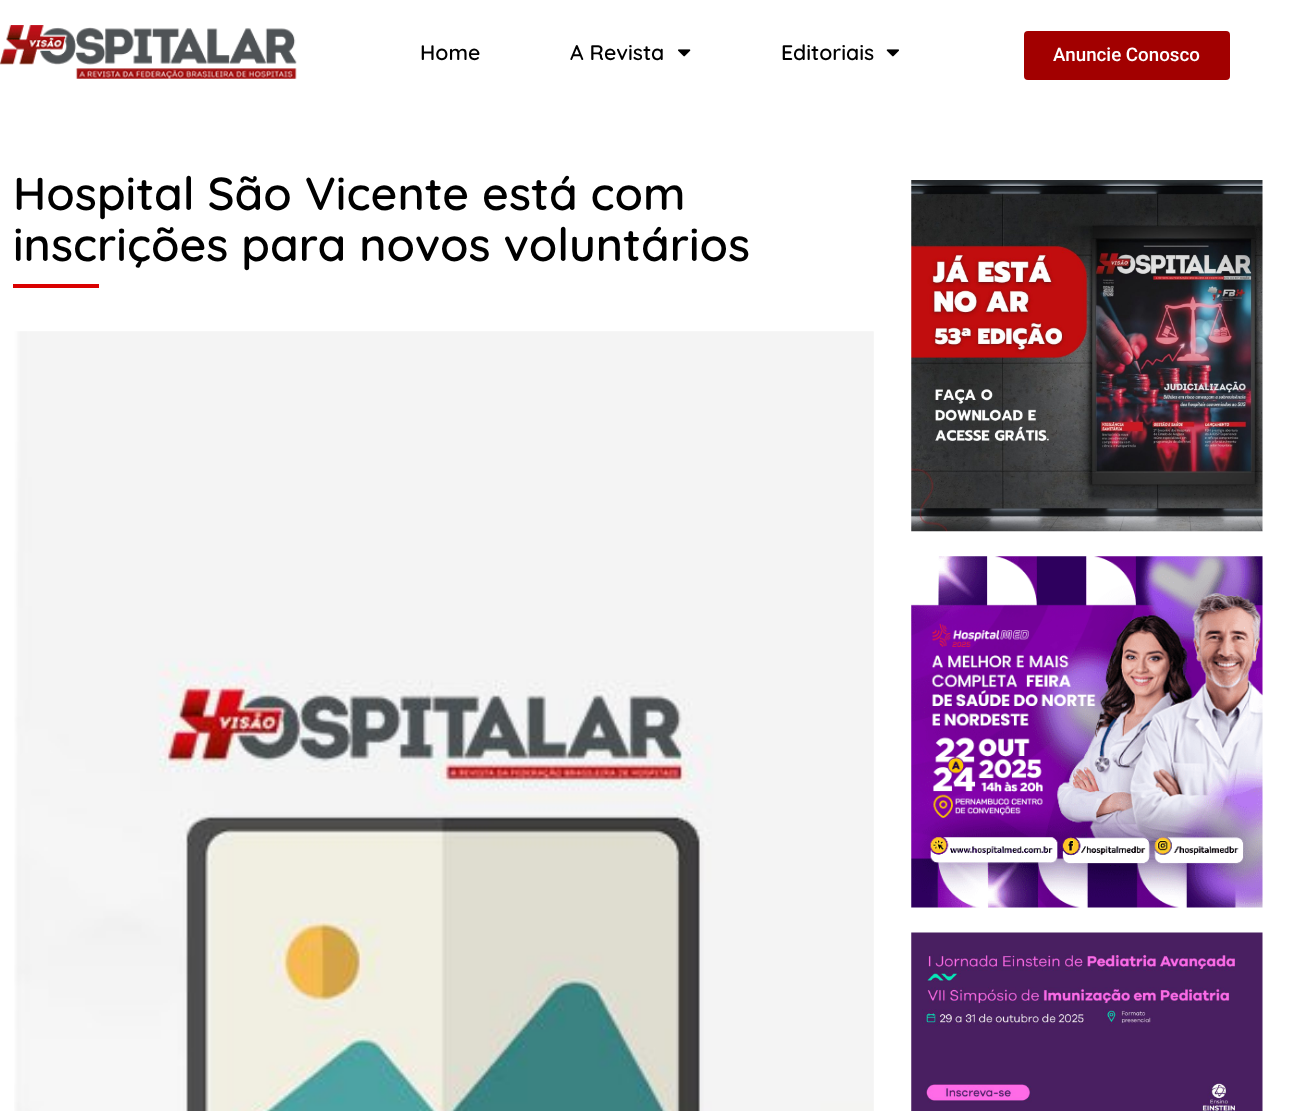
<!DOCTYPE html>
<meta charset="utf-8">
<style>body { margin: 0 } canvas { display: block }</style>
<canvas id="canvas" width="1292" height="1111"></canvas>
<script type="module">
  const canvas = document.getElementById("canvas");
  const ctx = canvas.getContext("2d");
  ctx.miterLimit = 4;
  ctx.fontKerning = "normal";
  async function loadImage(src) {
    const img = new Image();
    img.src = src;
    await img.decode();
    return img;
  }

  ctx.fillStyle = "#ffffff";
  ctx.fillRect(0, 0, 1292, 1111);
  ctx.drawImage(await loadImage("img1.png"), 0, 25, 297, 54);
  ctx.font = "600 21.25px Quicksand";
  ctx.fillStyle = "#000000";
  ctx.fillText("Home", 420, 60);
  ctx.fillText("A Revista", 570, 60);
  ctx.drawImage(await loadImage("img2.png"), 678, 49, 13, 8);
  ctx.fillText("Editoriais", 781, 60);
  ctx.drawImage(await loadImage("img3.png"), 886, 49, 13, 8);
  ctx.fillStyle = "#a20000";
  ctx.beginPath();
  ctx.roundRect(1024, 31, 206, 49, 4);
  ctx.fill();
  ctx.font = "500 18.75px Roboto";
  ctx.fillStyle = "#ffffff";
  ctx.fillText("Anuncie Conosco", 1053, 61);
  ctx.font = "600 46.25px Quicksand";
  ctx.fillStyle = "#000000";
  ctx.fillText("Hospital São Vicente está com", 13, 210);
  ctx.fillText("inscrições para novos voluntários", 13, 261);
  ctx.fillStyle = "#da0000";
  ctx.fillRect(13, 284, 86, 4);
  ctx.drawImage(await loadImage("img4.png"), 14, 331, 860, 780);
  ctx.drawImage(await loadImage("img5.png"), 911, 180, 352, 352);
  ctx.drawImage(await loadImage("img6.png"), 911, 556, 352, 352);
  ctx.drawImage(await loadImage("img7.png"), 911, 932, 352, 179);
</script>
